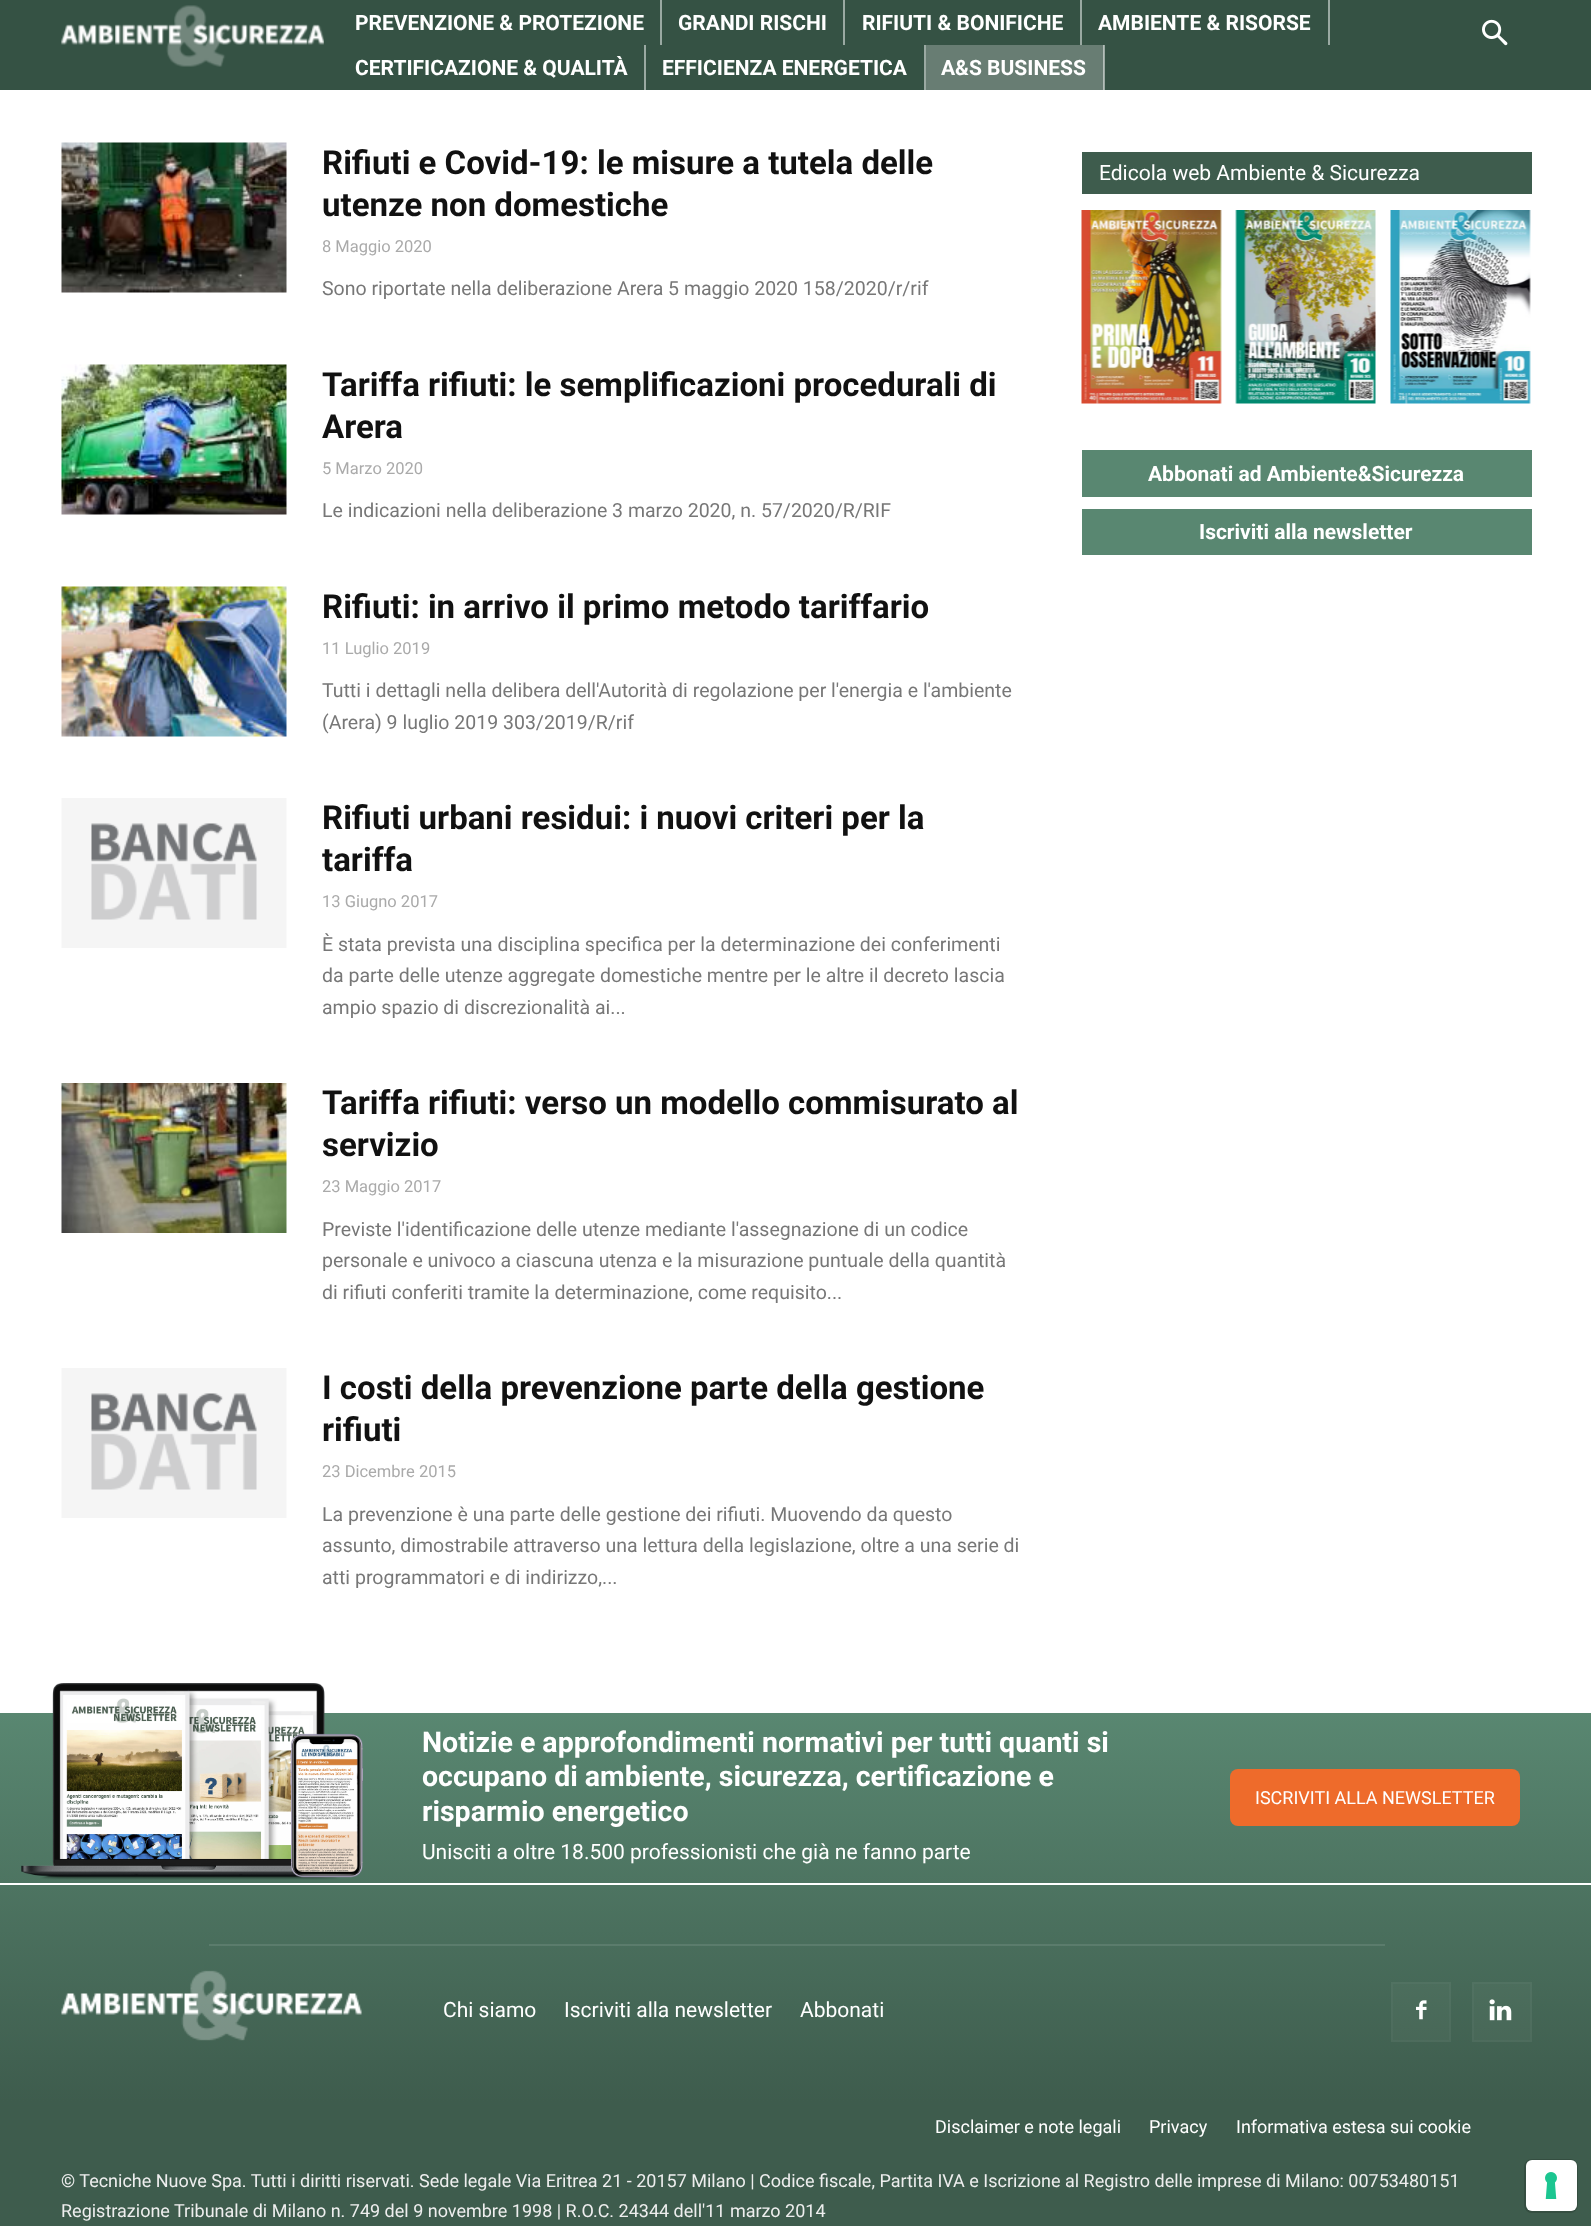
<!DOCTYPE html>
<meta charset="utf-8">
<style>body { margin: 0 } canvas { display: block }</style>
<canvas id="canvas" width="1591" height="2226"></canvas>
<script type="module">
  const canvas = document.getElementById("canvas");
  const ctx = canvas.getContext("2d");
  ctx.miterLimit = 4;
  ctx.fontKerning = "normal";
  async function loadImage(src) {
    const img = new Image();
    img.src = src;
    await img.decode();
    return img;
  }
  let gradient;

  ctx.fillStyle = "#ffffff";
  ctx.fillRect(0, 0, 1591, 2226);
  ctx.fillStyle = "#355244";
  ctx.fillRect(0, 0, 1591, 90);
  ctx.fillStyle = "#9aa9a2";
  ctx.fillRect(1104, 45, 1, 45);
  ctx.drawImage(await loadImage("img1.png"), 61, 5, 263, 62);
  ctx.fillRect(660, 0, 2, 45);
  ctx.font = "bold 21px Roboto";
  ctx.fillStyle = "#ffffff";
  ctx.fillText("PREVENZIONE & PROTEZIONE", 355, 30);
  ctx.fillStyle = "#9aa9a2";
  ctx.fillRect(843, 0, 2, 45);
  ctx.fillStyle = "#ffffff";
  ctx.fillText("GRANDI RISCHI", 678, 30);
  ctx.fillStyle = "#9aa9a2";
  ctx.fillRect(1080, 0, 2, 45);
  ctx.fillStyle = "#ffffff";
  ctx.fillText("RIFIUTI & BONIFICHE", 862, 30);
  ctx.fillStyle = "#9aa9a2";
  ctx.fillRect(1328, 0, 2, 45);
  ctx.fillStyle = "#ffffff";
  ctx.fillText("AMBIENTE & RISORSE", 1098, 30);
  ctx.fillStyle = "#9aa9a2";
  ctx.fillRect(644, 45, 2, 45);
  ctx.fillStyle = "#ffffff";
  ctx.fillText("CERTIFICAZIONE & QUALITÀ", 355, 75);
  ctx.fillStyle = "#9aa9a2";
  ctx.fillRect(924, 45, 2, 45);
  ctx.fillStyle = "#ffffff";
  ctx.fillText("EFFICIENZA ENERGETICA", 662, 75);
  ctx.fillStyle = "#687d73";
  ctx.fillRect(926, 45, 177, 45);
  ctx.fillStyle = "#b4beb9";
  ctx.fillRect(1103, 45, 1, 45);
  ctx.fillStyle = "#ffffff";
  ctx.fillText("A&S BUSINESS", 941, 75);
  ctx.drawImage(await loadImage("img2.png"), 1482, 19, 26, 27);
  ctx.drawImage(await loadImage("img3.png"), 61, 142, 226, 151);
  ctx.font = "bold 33px Roboto";
  ctx.fillStyle = "#111111";
  ctx.fillText("Rifiuti e Covid-19: le misure a tutela delle", 322, 174);
  ctx.fillText("utenze non domestiche", 322, 216);
  ctx.font = "16.5px Roboto";
  ctx.fillStyle = "#aaaaaa";
  ctx.fillText("8 Maggio 2020", 322, 252);
  ctx.font = "19.5px Roboto";
  ctx.fillStyle = "#777777";
  ctx.fillText("Sono riportate nella deliberazione Arera 5 maggio 2020 158/2020/r/rif", 322, 295);
  ctx.drawImage(await loadImage("img4.png"), 61, 364, 226, 151);
  ctx.font = "bold 33px Roboto";
  ctx.fillStyle = "#111111";
  ctx.fillText("Tariffa rifiuti: le semplificazioni procedurali di", 322, 396);
  ctx.fillText("Arera", 322, 438);
  ctx.font = "16.5px Roboto";
  ctx.fillStyle = "#aaaaaa";
  ctx.fillText("5 Marzo 2020", 322, 474);
  ctx.font = "19.5px Roboto";
  ctx.fillStyle = "#777777";
  ctx.fillText("Le indicazioni nella deliberazione 3 marzo 2020, n. 57/2020/R/RIF", 322, 517);
  ctx.drawImage(await loadImage("img5.png"), 61, 586, 226, 151);
  ctx.font = "bold 33px Roboto";
  ctx.fillStyle = "#111111";
  ctx.fillText("Rifiuti: in arrivo il primo metodo tariffario", 322, 618);
  ctx.font = "16.5px Roboto";
  ctx.fillStyle = "#aaaaaa";
  ctx.fillText("11 Luglio 2019", 322, 654);
  ctx.font = "19.5px Roboto";
  ctx.fillStyle = "#777777";
  ctx.fillText("Tutti i dettagli nella delibera dell'Autorità di regolazione per l'energia e l'ambiente", 322, 697);
  ctx.fillText("(Arera) 9 luglio 2019 303/2019/R/rif", 322, 729);
  ctx.drawImage(await loadImage("img6.png"), 61, 798, 226, 150);
  ctx.font = "bold 33px Roboto";
  ctx.fillStyle = "#111111";
  ctx.fillText("Rifiuti urbani residui: i nuovi criteri per la", 322, 829);
  ctx.fillText("tariffa", 322, 871);
  ctx.font = "16.5px Roboto";
  ctx.fillStyle = "#aaaaaa";
  ctx.fillText("13 Giugno 2017", 322, 907);
  ctx.font = "19.5px Roboto";
  ctx.fillStyle = "#777777";
  ctx.fillText("È stata prevista una disciplina specifica per la determinazione dei conferimenti", 322, 951);
  ctx.fillText("da parte delle utenze aggregate domestiche mentre per le altre il decreto lascia", 322, 982);
  ctx.fillText("ampio spazio di discrezionalità ai...", 322, 1014);
  ctx.drawImage(await loadImage("img7.png"), 61, 1083, 226, 150);
  ctx.font = "bold 33px Roboto";
  ctx.fillStyle = "#111111";
  ctx.fillText("Tariffa rifiuti: verso un modello commisurato al", 322, 1114);
  ctx.fillText("servizio", 322, 1156);
  ctx.font = "16.5px Roboto";
  ctx.fillStyle = "#aaaaaa";
  ctx.fillText("23 Maggio 2017", 322, 1192);
  ctx.font = "19.5px Roboto";
  ctx.fillStyle = "#777777";
  ctx.fillText("Previste l'identificazione delle utenze mediante l'assegnazione di un codice", 322, 1236);
  ctx.fillText("personale e univoco a ciascuna utenza e la misurazione puntuale della quantità", 322, 1267);
  ctx.fillText("di rifiuti conferiti tramite la determinazione, come requisito...", 322, 1299);
  ctx.drawImage(await loadImage("img6.png"), 61, 1368, 226, 150);
  ctx.font = "bold 33px Roboto";
  ctx.fillStyle = "#111111";
  ctx.fillText("I costi della prevenzione parte della gestione", 322, 1399);
  ctx.fillText("rifiuti", 322, 1441);
  ctx.font = "16.5px Roboto";
  ctx.fillStyle = "#aaaaaa";
  ctx.fillText("23 Dicembre 2015", 322, 1477);
  ctx.font = "19.5px Roboto";
  ctx.fillStyle = "#777777";
  ctx.fillText("La prevenzione è una parte delle gestione dei rifiuti. Muovendo da questo", 322, 1521);
  ctx.fillText("assunto, dimostrabile attraverso una lettura della legislazione, oltre a una serie di", 322, 1552);
  ctx.fillText("atti programmatori e di indirizzo,...", 322, 1584);
  ctx.fillStyle = "#3e5c4d";
  ctx.fillRect(1082, 152, 450, 42);
  ctx.font = "21px Roboto";
  ctx.fillStyle = "#ffffff";
  ctx.fillText("Edicola web Ambiente & Sicurezza", 1099, 180);
  ctx.drawImage(await loadImage("img8.png"), 1081, 210, 141, 194);
  ctx.drawImage(await loadImage("img9.png"), 1235, 210, 141, 194);
  ctx.drawImage(await loadImage("img10.png"), 1390, 210, 141, 194);
  ctx.fillStyle = "#598771";
  ctx.fillRect(1082, 450, 450, 47);
  ctx.font = "bold 21px Roboto";
  ctx.fillStyle = "#ffffff";
  ctx.fillText("Abbonati ad Ambiente&Sicurezza", 1148, 481);
  ctx.fillStyle = "#598771";
  ctx.fillRect(1082, 509, 450, 46);
  ctx.fillStyle = "#ffffff";
  ctx.fillText("Iscriviti alla newsletter", 1199, 539);
  gradient = ctx.createLinearGradient(796, 1713, 796, 2102);
  gradient.addColorStop(0, "#598771");
  gradient.addColorStop(1, "#3e5c4d");
  ctx.fillStyle = gradient;
  ctx.fillRect(0, 1713, 1591, 389);
  gradient = ctx.createLinearGradient(796, 1713, 796, 2102);
  gradient.addColorStop(0, "#5e8b75");
  gradient.addColorStop(1, "#446152");
  ctx.fillStyle = gradient;
  ctx.fillRect(1472, 1982, 60, 60);
  ctx.fillRect(1391, 1982, 60, 60);
  ctx.fillStyle = "#ffffff";
  ctx.fillRect(0, 1883, 1591, 2);
  ctx.drawImage(await loadImage("img11.png"), 21, 1683, 342, 197);
  ctx.font = "bold 28.5px Roboto";
  ctx.fillText("Notizie e approfondimenti normativi per tutti quanti si", 422, 1752);
  ctx.fillText("occupano di ambiente, sicurezza, certificazione e", 422, 1786);
  ctx.fillText("risparmio energetico", 422, 1821);
  ctx.font = "21px Roboto";
  ctx.fillText("Unisciti a oltre 18.500 professionisti che già ne fanno parte", 422, 1859);
  ctx.fillStyle = "#ee6b2b";
  ctx.beginPath();
  ctx.roundRect(1230, 1769, 290, 57, 8);
  ctx.fill();
  ctx.font = "18px Roboto";
  ctx.fillStyle = "#ffffff";
  ctx.fillText("ISCRIVITI ALLA NEWSLETTER", 1255, 1804);
  ctx.fillStyle = "#5b7c6c";
  ctx.fillRect(209, 1944, 1176, 2);
  ctx.drawImage(await loadImage("img12.png"), 61, 1970, 301, 71);
  ctx.font = "21px Roboto";
  ctx.fillStyle = "#ffffff";
  ctx.fillText("Chi siamo", 443, 2017);
  ctx.fillText("Iscriviti alla newsletter", 564, 2017);
  ctx.fillText("Abbonati", 800, 2017);
  ctx.drawImage(await loadImage("img13.png"), 1416, 2000, 11, 20);
  ctx.strokeStyle = "rgba(255, 255, 255, 0.03)";
  ctx.lineWidth = 2;
  ctx.strokeRect(1392, 1983, 58, 58);
  ctx.drawImage(await loadImage("img14.png"), 1489, 1999, 23, 22);
  ctx.strokeRect(1473, 1983, 58, 58);
  ctx.fillStyle = "#3e5c4d";
  ctx.fillRect(0, 2102, 1591, 124);
  ctx.font = "18px Roboto";
  ctx.fillStyle = "#ffffff";
  ctx.fillText("Disclaimer e note legali", 935, 2133);
  ctx.fillText("Privacy", 1149, 2133);
  ctx.fillText("Informativa estesa sui cookie", 1236, 2133);
  ctx.fillStyle = "#eeeeee";
  ctx.fillText("© Tecniche Nuove Spa. Tutti i diritti riservati. Sede legale Via Eritrea 21 - 20157 Milano | Codice fiscale, Partita IVA e Iscrizione al Registro delle imprese di Milano: 00753480151", 61, 2187);
  ctx.fillText("Registrazione Tribunale di Milano n. 749 del 9 novembre 1998 | R.O.C. 24344 dell'11 marzo 2014", 61, 2217);
  ctx.beginPath();
  ctx.roundRect(1525, 2160, 52, 52, 7);
  ctx.strokeStyle = "#354e41";
  ctx.stroke();
  ctx.fillStyle = "#ffffff";
  ctx.beginPath();
  ctx.roundRect(1526, 2160, 51, 51, 6);
  ctx.fill();
  ctx.drawImage(await loadImage("img15.png"), 1545, 2172, 12, 27);
</script>
